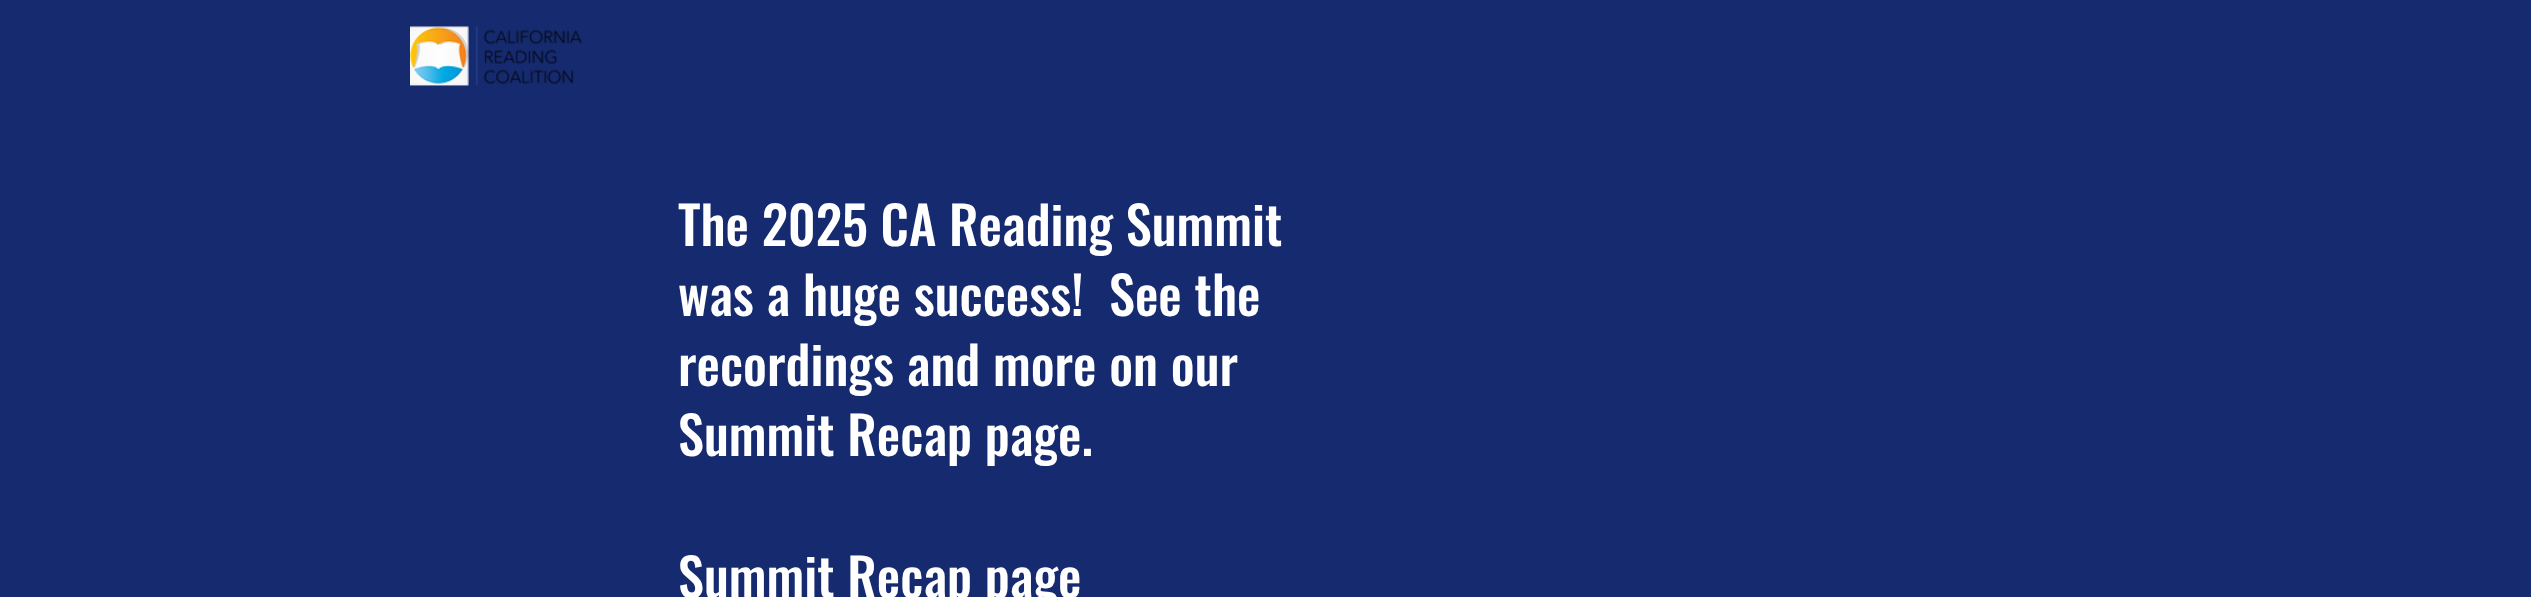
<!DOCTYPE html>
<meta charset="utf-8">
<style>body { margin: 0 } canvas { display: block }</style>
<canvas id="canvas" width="2531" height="597"></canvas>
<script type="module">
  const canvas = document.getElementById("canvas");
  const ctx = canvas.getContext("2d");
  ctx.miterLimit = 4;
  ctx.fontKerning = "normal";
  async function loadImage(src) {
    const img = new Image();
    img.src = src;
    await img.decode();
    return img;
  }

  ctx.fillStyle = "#162b6f";
  ctx.fillRect(0, 0, 2531, 597);
  ctx.drawImage(await loadImage("img1.png"), 410, 26, 172, 60);
  ctx.font = "500 52.5px Oswald";
  ctx.fillStyle = "#ffffff";
  ctx.fillText("The 2025 CA Reading Summit", 678, 246);
  ctx.fillText("was a huge success!", 678, 316);
  ctx.fillText("See the", 1109, 316);
  ctx.fillText("recordings and more on our", 678, 386);
  ctx.fillText("Summit Recap page.", 678, 456);
  ctx.fillText("Summit Recap page", 678, 598);
</script>
